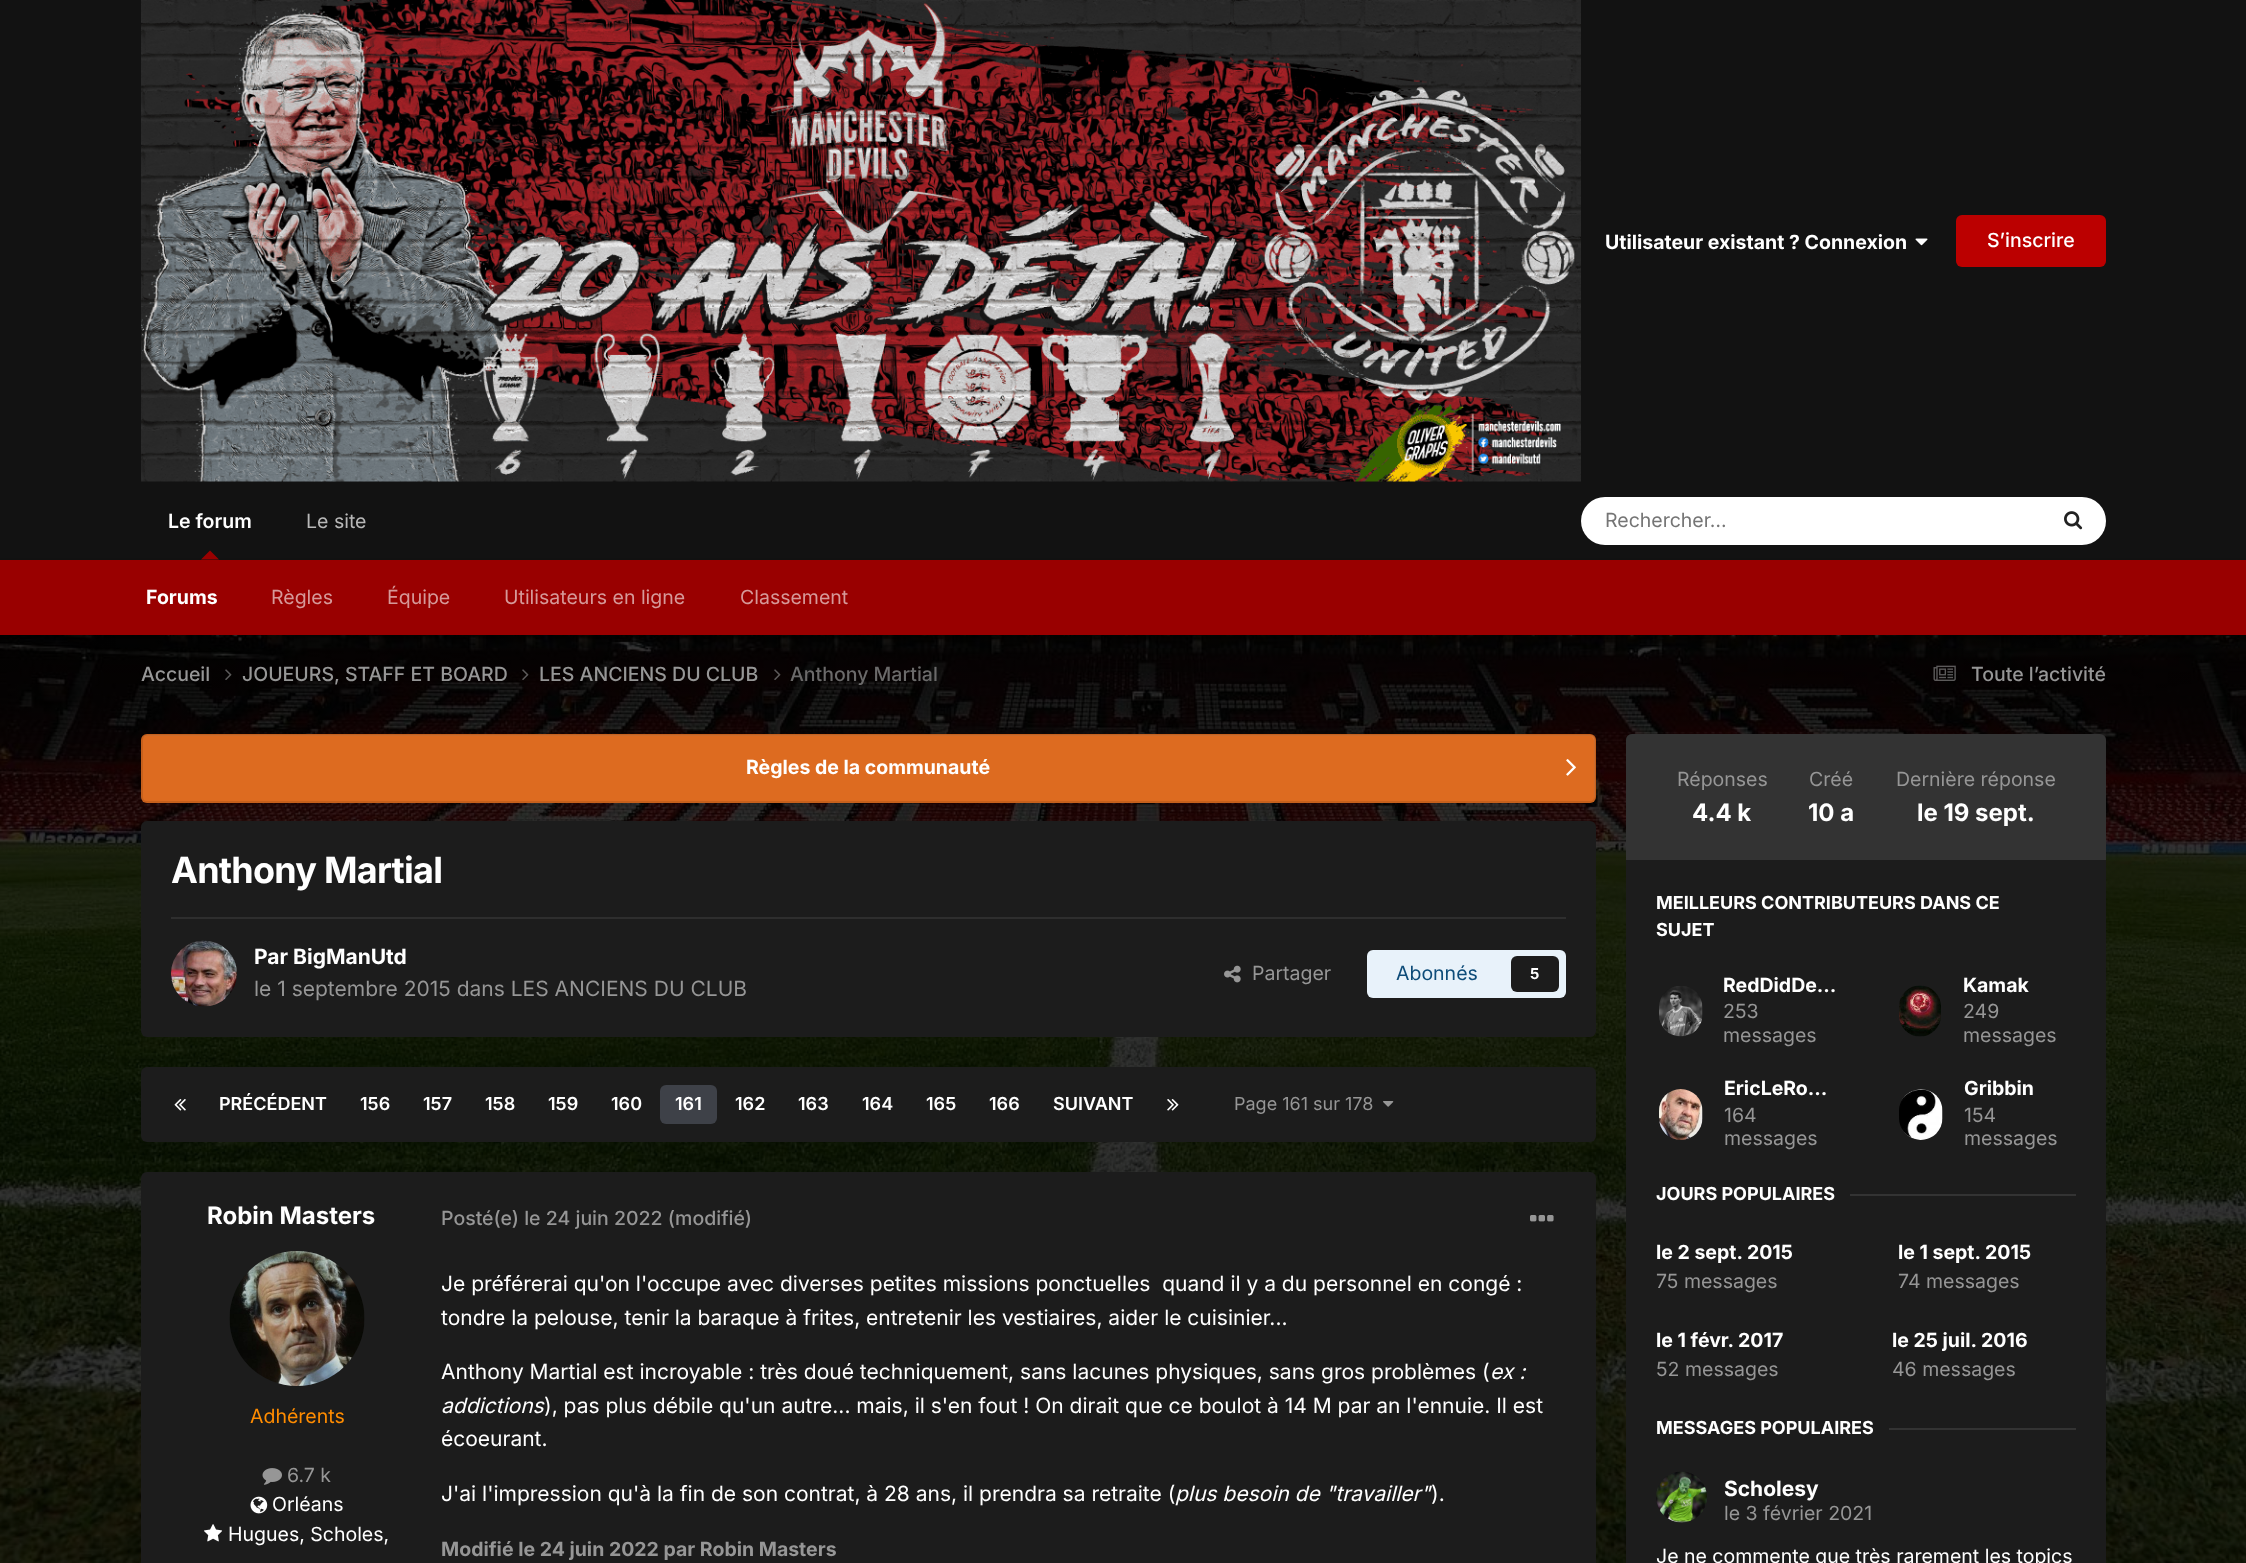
<!DOCTYPE html>
<meta charset="utf-8">
<style>body { margin: 0 } canvas { display: block }</style>
<canvas id="canvas" width="2246" height="1563"></canvas>
<script type="module">
  const canvas = document.getElementById("canvas");
  const ctx = canvas.getContext("2d");
  ctx.miterLimit = 4;
  ctx.fontKerning = "normal";
  async function loadImage(src) {
    const img = new Image();
    img.src = src;
    await img.decode();
    return img;
  }

  ctx.fillStyle = "#ffffff";
  ctx.fillRect(0, 0, 2246, 1563);
  ctx.drawImage(await loadImage("img1.png"), 0, 635, 2246, 928);
  ctx.fillStyle = "#121212";
  ctx.fillRect(0, 0, 2246, 560);
  ctx.drawImage(await loadImage("img2.png"), 141, 0, 1440, 482);
  ctx.font = "bold 19.5px Inter";
  ctx.fillStyle = "#ffffff";
  ctx.fillText("Utilisateur existant ? Connexion", 1605, 249);
  ctx.drawImage(await loadImage("img3.png"), 1915, 238, 13, 8);
  ctx.fillStyle = "#bb0000";
  ctx.beginPath();
  ctx.roundRect(1956, 215, 150, 52, 6);
  ctx.fill();
  ctx.font = "500 19.5px Inter";
  ctx.fillStyle = "#ffffff";
  ctx.fillText("S’inscrire", 1987, 247);
  ctx.font = "600 19.5px Inter";
  ctx.fillText("Le forum", 168, 528);
  ctx.fillStyle = "rgba(0, 0, 0, 0.1)";
  ctx.filter = "blur(1.5px)";
  ctx.beginPath();
  ctx.rect(0, 561, 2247, 75);
  ctx.fill();
  ctx.filter = "none";
  ctx.fillStyle = "#990000";
  ctx.beginPath();
  ctx.moveTo(219, 559.5);
  ctx.lineTo(201, 559.5);
  ctx.lineTo(210, 550.5);
  ctx.closePath();
  ctx.fill();
  ctx.fillRect(0, 560, 2246, 75);
  ctx.font = "bold 19.5px Inter";
  ctx.fillStyle = "#ffffff";
  ctx.fillText("Forums", 146, 604);
  ctx.font = "19.5px Inter";
  ctx.fillStyle = "#d69999";
  ctx.fillText("Règles", 271, 604);
  ctx.fillText("Équipe", 387, 604);
  ctx.fillText("Utilisateurs en ligne", 504, 604);
  ctx.fillText("Classement", 740, 604);
  ctx.fillStyle = "#b8b8b8";
  ctx.fillText("Le site", 306, 528);
  ctx.fillStyle = "#ffffff";
  ctx.beginPath();
  ctx.roundRect(1581, 497, 525, 48, 24);
  ctx.fill();
  ctx.fillStyle = "#757575";
  ctx.fillText("Rechercher…", 1605, 527);
  ctx.drawImage(await loadImage("img4.png"), 2064, 511, 19, 19);
  ctx.font = "500 19.5px Inter";
  ctx.fillStyle = "#969696";
  ctx.fillText("Accueil", 141, 681);
  ctx.drawImage(await loadImage("img5.png"), 225, 669, 7, 11);
  ctx.fillText("JOUEURS, STAFF ET BOARD", 242, 681);
  ctx.drawImage(await loadImage("img6.png"), 522, 669, 7, 11);
  ctx.fillText("LES ANCIENS DU CLUB", 539, 681);
  ctx.drawImage(await loadImage("img7.png"), 774, 669, 7, 11);
  ctx.fillStyle = "#6b6a6a";
  ctx.fillText("Anthony Martial", 790, 681);
  ctx.drawImage(await loadImage("img8.png"), 1933, 665, 23, 16);
  ctx.fillStyle = "#969696";
  ctx.fillText("Toute l’activité", 1971, 681);
  ctx.fillStyle = "#dd6b20";
  ctx.beginPath();
  ctx.roundRect(141, 734, 1455, 69, 6);
  ctx.fill();
  ctx.fillStyle = "#e07a36";
  ctx.beginPath();
  ctx.moveTo(147, 736);
  ctx.lineTo(1590, 736);
  ctx.bezierCurveTo(1592, 736, 1594, 739, 1594, 741);
  ctx.lineTo(1594, 799);
  ctx.bezierCurveTo(1595, 798, 1595, 797, 1595, 796);
  ctx.lineTo(1595, 740);
  ctx.bezierCurveTo(1595, 737, 1593, 735, 1590, 735);
  ctx.lineTo(148, 735);
  ctx.bezierCurveTo(146, 735, 144, 736, 143, 738);
  ctx.bezierCurveTo(144, 737, 146, 736, 147, 736);
  ctx.closePath();
  ctx.fill();
  ctx.beginPath();
  ctx.roundRect(142, 735, 1453, 67, 5);
  ctx.strokeStyle = "rgba(0, 0, 0, 0.1)";
  ctx.lineWidth = 2;
  ctx.stroke();
  ctx.font = "bold 19.5px Inter";
  ctx.fillStyle = "#ffffff";
  ctx.fillText("Règles de la communauté", 746, 774);
  ctx.drawImage(await loadImage("img9.png"), 1566, 759, 10, 17);
  ctx.fillStyle = "#1c1c1c";
  ctx.beginPath();
  ctx.roundRect(141, 821, 1455, 216, 6);
  ctx.fill();
  ctx.letterSpacing = "-0.75px";
  ctx.font = "bold 36px Inter";
  ctx.fillStyle = "#ffffff";
  ctx.fillText("Anthony Martial", 171, 883);
  ctx.fillStyle = "#2e2e2e";
  ctx.fillRect(171, 917, 1395, 2);
  ctx.drawImage(await loadImage("img10.png"), 171, 940, 66, 67);
  ctx.letterSpacing = "0px";
  ctx.font = "bold 21px Inter";
  ctx.fillStyle = "#ffffff";
  ctx.fillText("Par BigManUtd", 254, 964);
  ctx.font = "21px Inter";
  ctx.fillStyle = "#969696";
  ctx.fillText("le 1 septembre 2015 dans LES ANCIENS DU CLUB", 254, 996);
  ctx.drawImage(await loadImage("img11.png"), 1224, 965, 17, 18);
  ctx.font = "19.5px Inter";
  ctx.fillText("Partager", 1252, 980);
  ctx.fillStyle = "#e8f2fa";
  ctx.beginPath();
  ctx.roundRect(1367, 950, 199, 48, 6);
  ctx.fill();
  ctx.fillStyle = "#0e4c79";
  ctx.fillText("Abonnés", 1396, 980);
  ctx.fillStyle = "#1c1c1c";
  ctx.beginPath();
  ctx.roundRect(1511, 956, 48, 36, 6);
  ctx.fill();
  ctx.font = "bold 15px Inter";
  ctx.fillStyle = "#ffffff";
  ctx.fillText("5", 1530, 979);
  ctx.fillStyle = "#1c1c1c";
  ctx.beginPath();
  ctx.roundRect(141, 1067, 1455, 75, 6);
  ctx.fill();
  ctx.drawImage(await loadImage("img12.png"), 174, 1099, 12, 12);
  ctx.font = "600 18px Inter";
  ctx.fillStyle = "#ffffff";
  ctx.fillText("PRÉCÉDENT", 219, 1110);
  ctx.fillText("156", 360, 1110);
  ctx.fillText("157", 423, 1110);
  ctx.fillText("158", 485, 1110);
  ctx.fillText("159", 548, 1110);
  ctx.fillText("160", 611, 1110);
  ctx.fillStyle = "#3e4148";
  ctx.beginPath();
  ctx.roundRect(660, 1085, 57, 39, 6);
  ctx.fill();
  ctx.fillStyle = "#ffffff";
  ctx.fillText("161", 675, 1110);
  ctx.fillText("162", 735, 1110);
  ctx.fillText("163", 798, 1110);
  ctx.fillText("164", 862, 1110);
  ctx.fillText("165", 926, 1110);
  ctx.fillText("166", 989, 1110);
  ctx.fillText("SUIVANT", 1053, 1110);
  ctx.drawImage(await loadImage("img13.png"), 1167, 1099, 12, 12);
  ctx.font = "18px Inter";
  ctx.fillStyle = "#969696";
  ctx.fillText("Page 161 sur 178", 1234, 1110);
  ctx.drawImage(await loadImage("img14.png"), 1383, 1101, 11, 6);
  ctx.fillStyle = "#1c1c1c";
  ctx.beginPath();
  ctx.roundRect(141, 1172, 1455, 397, 6);
  ctx.fill();
  ctx.font = "bold 24px Inter";
  ctx.fillStyle = "#ffffff";
  ctx.fillText("Robin Masters", 207, 1224);
  ctx.drawImage(await loadImage("img15.png"), 229, 1251, 136, 135);
  ctx.font = "19.5px Inter";
  ctx.fillStyle = "#ff8c00";
  ctx.fillText("Adhérents", 250, 1423);
  ctx.drawImage(await loadImage("img16.png"), 262, 1468, 20, 17);
  ctx.fillStyle = "#969696";
  ctx.fillText("6.7 k", 287, 1482);
  ctx.drawImage(await loadImage("img17.png"), 250, 1496, 18, 18);
  ctx.fillStyle = "#ffffff";
  ctx.fillText("Orléans", 272, 1511);
  ctx.drawImage(await loadImage("img18.png"), 204, 1524, 19, 18);
  ctx.fillText("Hugues, Scholes,", 228, 1541);
  ctx.font = "500 19.5px Inter";
  ctx.fillStyle = "#969696";
  ctx.fillText("Posté(e) le 24 juin 2022 (modifié)", 441, 1225);
  ctx.drawImage(await loadImage("img19.png"), 1530, 1215, 24, 7);
  ctx.font = "21px Inter";
  ctx.fillStyle = "#ffffff";
  ctx.fillText("Je préférerai qu'on l'occupe avec diverses petites missions ponctuelles  quand il y a du personnel en congé :", 441, 1291);
  ctx.fillText("tondre la pelouse, tenir la baraque à frites, entretenir les vestiaires, aider le cuisinier...", 441, 1325);
  ctx.fillText("Anthony Martial est incroyable : très doué techniquement, sans lacunes physiques, sans gros problèmes (", 441, 1379);
  ctx.font = "italic 21px Inter";
  ctx.fillText("ex :", 1490, 1379);
  ctx.fillText("addictions", 441, 1413);
  ctx.font = "21px Inter";
  ctx.fillText("), pas plus débile qu'un autre... mais, il s'en fout ! On dirait que ce boulot à 14 M par an l'ennuie. Il est", 544, 1413);
  ctx.fillText("écoeurant.", 441, 1446);
  ctx.fillText("J'ai l'impression qu'à la fin de son contrat, à 28 ans, il prendra sa retraite (", 441, 1501);
  ctx.font = "italic 21px Inter";
  ctx.fillText("plus besoin de \"travailler\"", 1175, 1501);
  ctx.font = "21px Inter";
  ctx.fillText(").", 1431, 1501);
  ctx.font = "bold 19.5px Inter";
  ctx.fillStyle = "#969696";
  ctx.fillText("Modifié le 24 juin 2022 par Robin Masters", 441, 1556);
  ctx.fillStyle = "#1c1c1c";
  ctx.beginPath();
  ctx.roundRect(1626, 734, 480, 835, 6);
  ctx.fill();
  ctx.fillStyle = "#333333";
  ctx.beginPath();
  ctx.roundRect(1626, 734, 480, 126, [6, 6, 0, 0]);
  ctx.fill();
  ctx.font = "19.5px Inter";
  ctx.fillStyle = "#969696";
  ctx.fillText("Réponses", 1677, 786);
  ctx.font = "bold 24px Inter";
  ctx.fillStyle = "#ffffff";
  ctx.fillText("4.4 k", 1692, 821);
  ctx.font = "19.5px Inter";
  ctx.fillStyle = "#969696";
  ctx.fillText("Créé", 1809, 786);
  ctx.font = "bold 24px Inter";
  ctx.fillStyle = "#ffffff";
  ctx.fillText("10 a", 1808, 821);
  ctx.font = "19.5px Inter";
  ctx.fillStyle = "#969696";
  ctx.fillText("Dernière réponse", 1896, 786);
  ctx.font = "bold 24px Inter";
  ctx.fillStyle = "#ffffff";
  ctx.fillText("le 19 sept.", 1917, 821);
  ctx.font = "bold 18px Inter";
  ctx.fillText("MEILLEURS CONTRIBUTEURS DANS CE", 1656, 909);
  ctx.fillText("SUJET", 1656, 936);
  ctx.drawImage(await loadImage("img20.png"), 1659, 986, 44, 51);
  ctx.font = "bold 19.5px Inter";
  ctx.fillText("RedDidDe…", 1723, 992);
  ctx.font = "19.5px Inter";
  ctx.fillStyle = "#969696";
  ctx.fillText("253", 1723, 1018);
  ctx.fillText("messages", 1723, 1042);
  ctx.drawImage(await loadImage("img21.png"), 1899, 985, 42, 52);
  ctx.font = "bold 19.5px Inter";
  ctx.fillStyle = "#ffffff";
  ctx.fillText("Kamak", 1963, 992);
  ctx.font = "19.5px Inter";
  ctx.fillStyle = "#969696";
  ctx.fillText("249", 1963, 1018);
  ctx.fillText("messages", 1963, 1042);
  ctx.drawImage(await loadImage("img22.png"), 1659, 1089, 44, 51);
  ctx.font = "bold 19.5px Inter";
  ctx.fillStyle = "#ffffff";
  ctx.fillText("EricLeRo…", 1724, 1095);
  ctx.font = "19.5px Inter";
  ctx.fillStyle = "#969696";
  ctx.fillText("164", 1724, 1122);
  ctx.fillText("messages", 1724, 1145);
  ctx.drawImage(await loadImage("img23.png"), 1899, 1089, 44, 51);
  ctx.font = "bold 19.5px Inter";
  ctx.fillStyle = "#ffffff";
  ctx.fillText("Gribbin", 1964, 1095);
  ctx.font = "19.5px Inter";
  ctx.fillStyle = "#969696";
  ctx.fillText("154", 1964, 1122);
  ctx.fillText("messages", 1964, 1145);
  ctx.font = "bold 18px Inter";
  ctx.fillStyle = "#ffffff";
  ctx.fillText("JOURS POPULAIRES", 1656, 1200);
  ctx.fillStyle = "#333333";
  ctx.fillRect(1850, 1194, 226, 2);
  ctx.font = "bold 19.5px Inter";
  ctx.fillStyle = "#ffffff";
  ctx.fillText("le 2 sept. 2015", 1656, 1259);
  ctx.font = "19.5px Inter";
  ctx.fillStyle = "#969696";
  ctx.fillText("75 messages", 1656, 1288);
  ctx.font = "bold 19.5px Inter";
  ctx.fillStyle = "#ffffff";
  ctx.fillText("le 1 sept. 2015", 1898, 1259);
  ctx.font = "19.5px Inter";
  ctx.fillStyle = "#969696";
  ctx.fillText("74 messages", 1898, 1288);
  ctx.font = "bold 19.5px Inter";
  ctx.fillStyle = "#ffffff";
  ctx.fillText("le 1 févr. 2017", 1656, 1347);
  ctx.font = "19.5px Inter";
  ctx.fillStyle = "#969696";
  ctx.fillText("52 messages", 1656, 1376);
  ctx.font = "bold 19.5px Inter";
  ctx.fillStyle = "#ffffff";
  ctx.fillText("le 25 juil. 2016", 1892, 1347);
  ctx.font = "19.5px Inter";
  ctx.fillStyle = "#969696";
  ctx.fillText("46 messages", 1892, 1376);
  ctx.font = "bold 18px Inter";
  ctx.fillStyle = "#ffffff";
  ctx.fillText("MESSAGES POPULAIRES", 1656, 1434);
  ctx.fillStyle = "#333333";
  ctx.fillRect(1889, 1428, 187, 2);
  ctx.drawImage(await loadImage("img24.png"), 1656, 1471, 51, 52);
  ctx.font = "bold 21px Inter";
  ctx.fillStyle = "#ffffff";
  ctx.fillText("Scholesy", 1724, 1496);
  ctx.font = "19.5px Inter";
  ctx.fillStyle = "#969696";
  ctx.fillText("le 3 février 2021", 1724, 1520);
  ctx.fillStyle = "#ffffff";
  ctx.fillText("Je ne commente que très rarement les topics", 1656, 1563);
</script>
